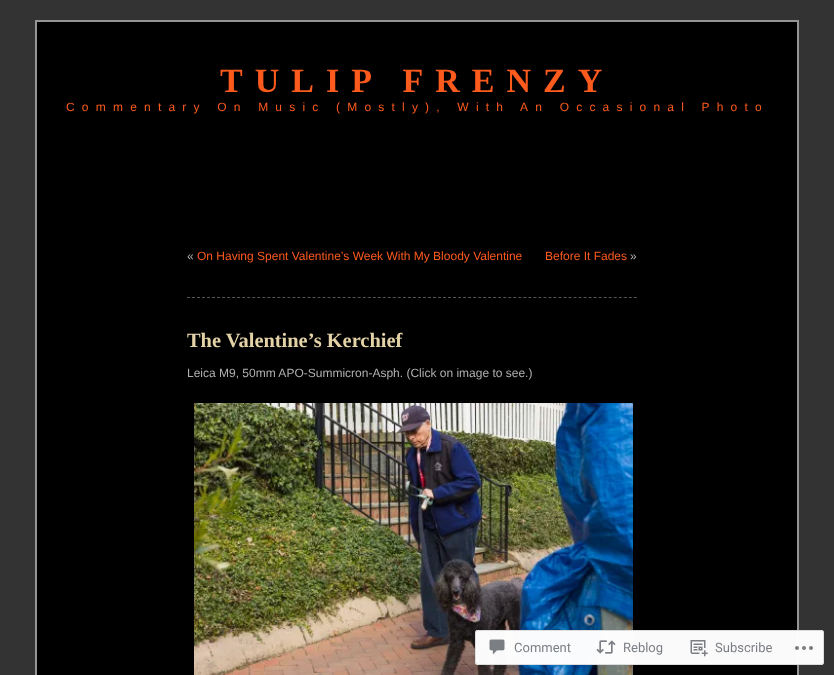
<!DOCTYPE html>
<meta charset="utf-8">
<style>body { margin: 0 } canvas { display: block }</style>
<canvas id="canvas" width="834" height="675"></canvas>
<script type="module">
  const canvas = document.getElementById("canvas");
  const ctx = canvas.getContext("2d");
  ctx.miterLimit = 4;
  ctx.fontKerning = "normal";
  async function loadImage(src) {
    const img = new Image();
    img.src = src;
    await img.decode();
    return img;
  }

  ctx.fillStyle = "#333333";
  ctx.fillRect(0, 0, 834, 675);
  ctx.fillStyle = "#000000";
  ctx.beginPath();
  ctx.rect(36, 21, 762, 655);
  ctx.fill();
  ctx.strokeStyle = "#959596";
  ctx.lineWidth = 2;
  ctx.stroke();
  ctx.letterSpacing = "12px";
  ctx.font = "bold 34px Liberation Serif";
  ctx.fillStyle = "#fd5a1e";
  ctx.fillText("TULIP FRENZY", 220, 92);
  ctx.letterSpacing = "7.2px";
  ctx.font = "12px Liberation Sans";
  ctx.fillText("Commentary On Music (Mostly), With An Occasional Photo", 66, 111);
  ctx.letterSpacing = "0px";
  ctx.fillStyle = "#b0b0b0";
  ctx.fillText("«", 187, 260);
  ctx.fillStyle = "#fd5a1e";
  ctx.fillText("On Having Spent Valentine’s Week With My Bloody Valentine", 197, 260);
  ctx.fillText("Before It Fades", 545, 260);
  ctx.fillStyle = "#b0b0b0";
  ctx.fillText("»", 630, 260);
  ctx.beginPath();
  ctx.moveTo(187, 297.5);
  ctx.lineTo(637, 297.5);
  ctx.strokeStyle = "#555555";
  ctx.lineWidth = 1;
  ctx.setLineDash([3, 2.02]);
  ctx.stroke();
  ctx.font = "bold 20.4px Liberation Serif";
  ctx.fillStyle = "#e4d3a6";
  ctx.fillText("The Valentine’s Kerchief", 187, 347);
  ctx.font = "12px Liberation Sans";
  ctx.fillStyle = "#b0b0b0";
  ctx.fillText("Leica M9, 50mm APO-Summicron-Asph. (Click on image to see.)", 187, 377);
  ctx.drawImage(await loadImage("img1.png"), 194, 403, 439, 272);
  ctx.fillStyle = "rgba(255, 255, 255, 0.98)";
  ctx.beginPath();
  ctx.roundRect(475, 630, 349, 35, 3);
  ctx.fill();
  ctx.beginPath();
  ctx.roundRect(475.5, 630.5, 348, 34, 2.5);
  ctx.strokeStyle = "rgba(220, 220, 222, 0.98)";
  ctx.setLineDash([]);
  ctx.stroke();
  ctx.drawImage(await loadImage("img2.png"), 489, 639, 16, 16);
  ctx.font = "13px Roboto";
  ctx.fillStyle = "#7b7f84";
  ctx.fillText("Comment", 514, 652);
  ctx.drawImage(await loadImage("img3.png"), 596, 640, 20, 14);
  ctx.fillText("Reblog", 623, 652);
  ctx.drawImage(await loadImage("img4.png"), 690, 640, 18, 17);
  ctx.fillText("Subscribe", 715, 652);
  ctx.drawImage(await loadImage("img5.png"), 795, 646, 18, 4);
</script>
